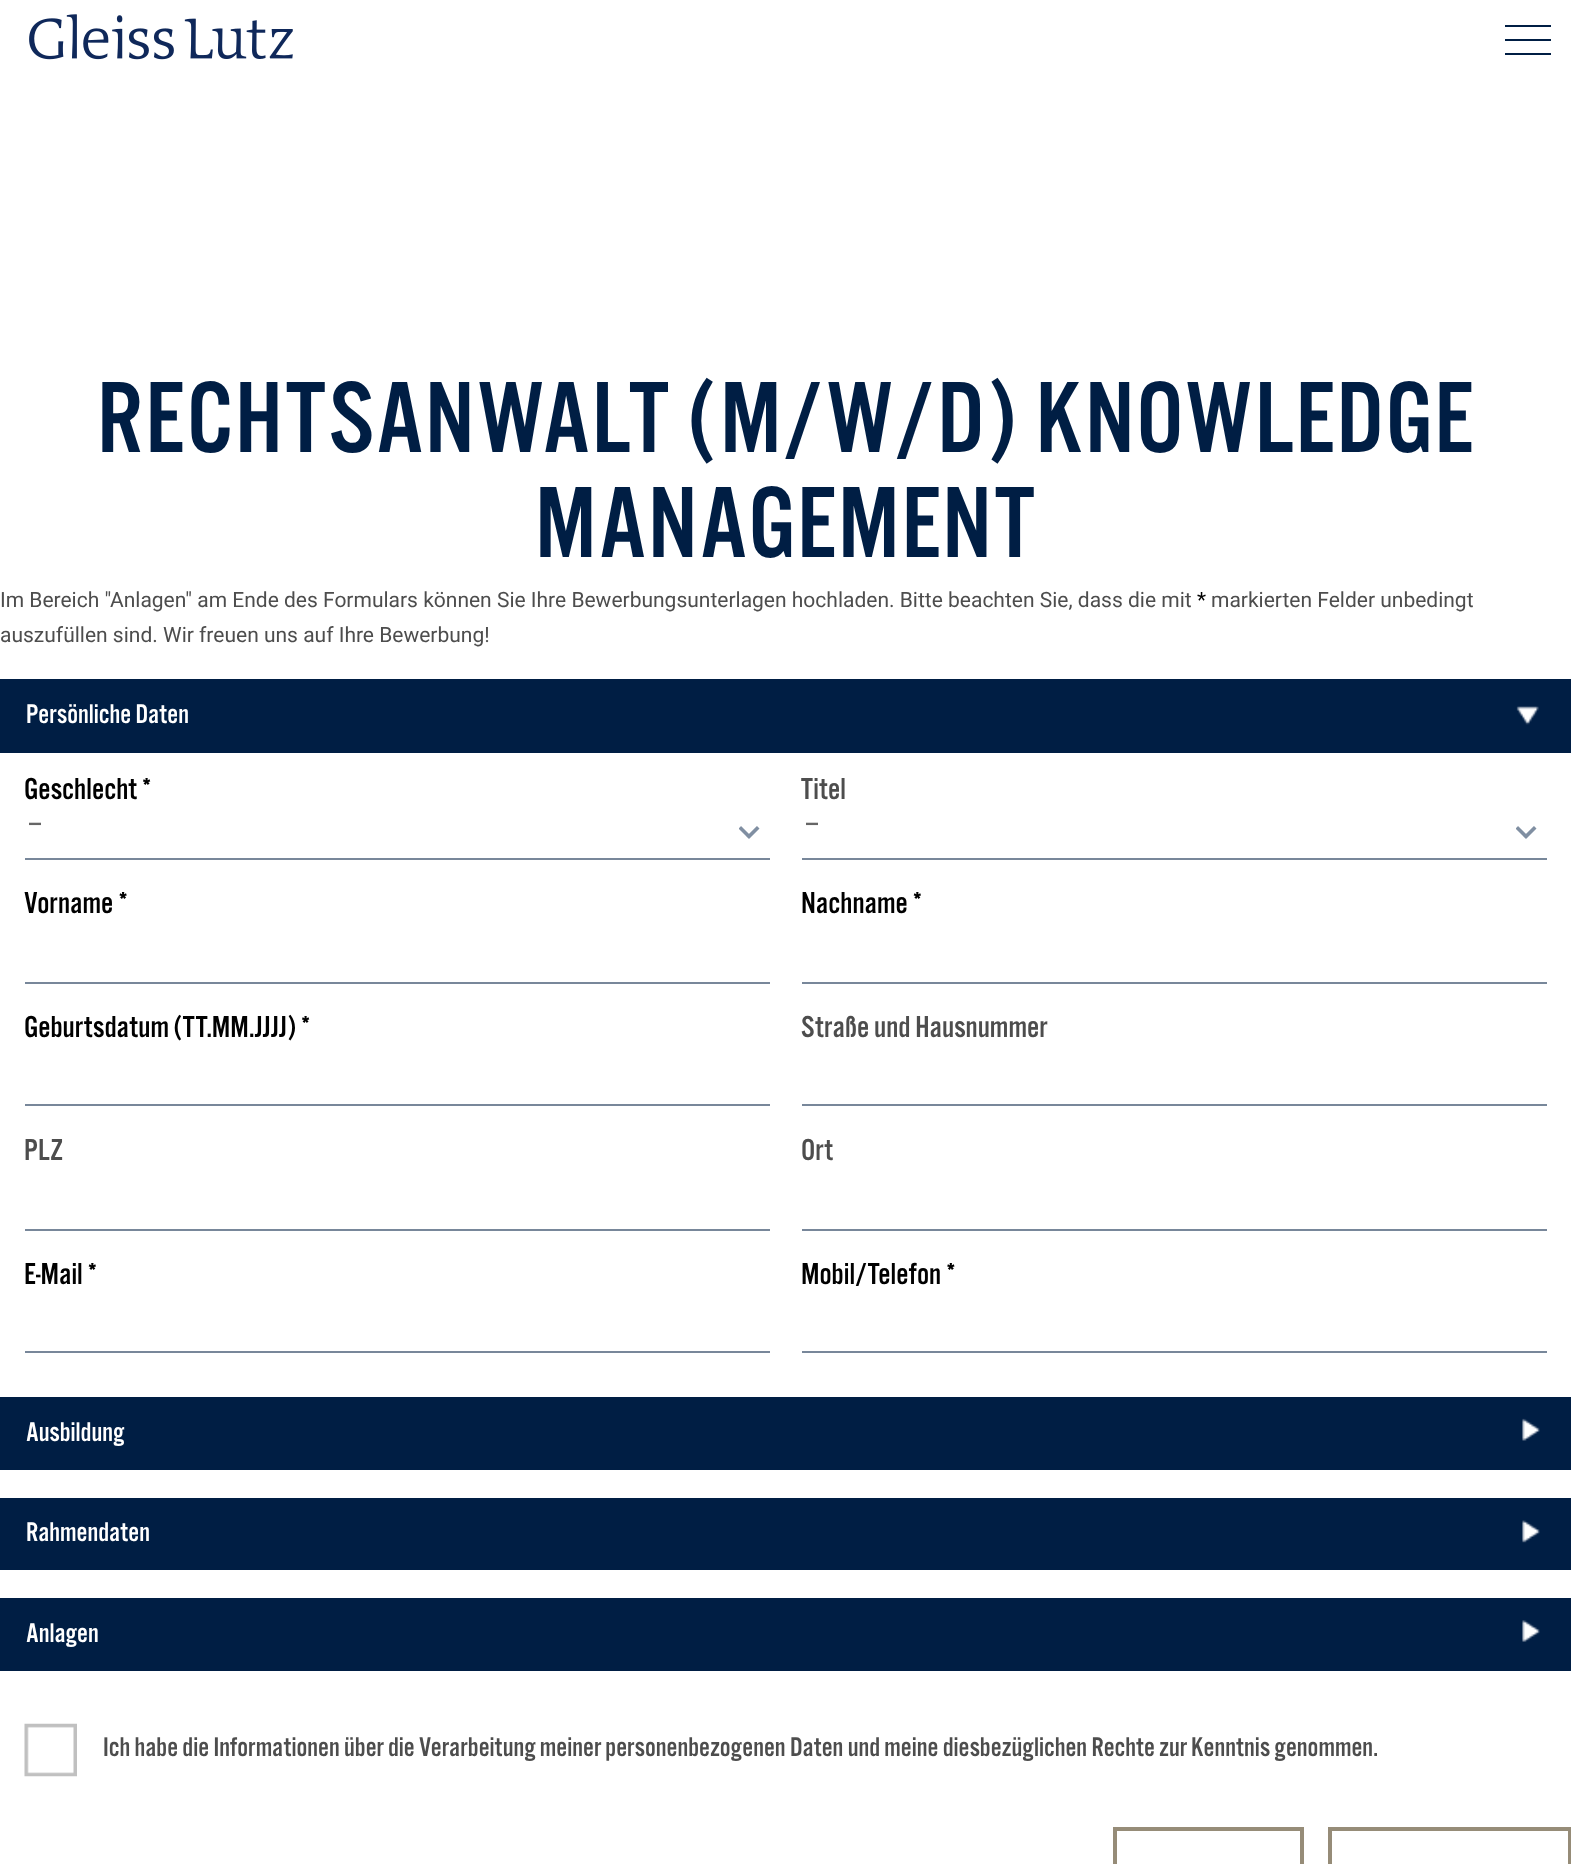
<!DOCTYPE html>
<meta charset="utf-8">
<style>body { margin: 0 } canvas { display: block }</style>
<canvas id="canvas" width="1571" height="1864"></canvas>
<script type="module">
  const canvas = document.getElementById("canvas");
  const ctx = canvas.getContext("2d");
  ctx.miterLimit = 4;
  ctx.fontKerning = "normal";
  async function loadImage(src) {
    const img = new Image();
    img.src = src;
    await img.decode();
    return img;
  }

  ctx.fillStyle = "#ffffff";
  ctx.fillRect(0, 0, 1571, 1864);
  ctx.drawImage(await loadImage("img1.png"), 29, 14, 264, 46);
  ctx.fillStyle = "#001e44";
  ctx.fillRect(1505, 25, 46, 2);
  ctx.fillRect(1505, 39, 46, 2);
  ctx.fillRect(1505, 53, 46, 2);
  ctx.letterSpacing = "1.75px";
  ctx.font = "105px 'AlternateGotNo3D'";
  ctx.fillText("RECHTSANWALT (M/W/D) KNOWLEDGE", 97, 452);
  ctx.fillText("MANAGEMENT", 535, 557);
  ctx.letterSpacing = "0px";
  ctx.font = "21px Roboto";
  ctx.fillStyle = "#4d4d4d";
  ctx.fillText("Im Bereich \"Anlagen\" am Ende des Formulars können Sie Ihre Bewerbungsunterlagen hochladen. Bitte beachten Sie, dass die mit", 0, 607);
  ctx.fillStyle = "#000000";
  ctx.fillText("*", 1197, 607);
  ctx.fillStyle = "#4d4d4d";
  ctx.fillText("markierten Felder unbedingt", 1211, 607);
  ctx.fillText("auszufüllen sind. Wir freuen uns auf Ihre Bewerbung!", 0, 642);
  ctx.fillStyle = "#001e44";
  ctx.fillRect(0, 679, 1571, 74);
  ctx.drawImage(await loadImage("img2.png"), 1516, 706, 23, 19);
  ctx.font = "28px 'AlternateGotNo3D'";
  ctx.fillStyle = "#ffffff";
  ctx.fillText("Persönliche Daten", 26, 723);
  ctx.font = "31.5px 'AlternateGotNo3D'";
  ctx.fillStyle = "#000000";
  ctx.fillText("Geschlecht *", 24, 799);
  ctx.fillStyle = "#78879a";
  ctx.fillRect(25, 858, 745, 2);
  ctx.font = "28px 'AlternateGotNo3D'";
  ctx.fillStyle = "#666666";
  ctx.fillText("---", 29, 831);
  ctx.drawImage(await loadImage("img3.png"), 739, 826, 21, 13);
  ctx.font = "31.5px 'AlternateGotNo3D'";
  ctx.fillStyle = "#4d4d4d";
  ctx.fillText("Titel", 801, 799);
  ctx.fillStyle = "#78879a";
  ctx.fillRect(802, 858, 745, 2);
  ctx.font = "28px 'AlternateGotNo3D'";
  ctx.fillStyle = "#666666";
  ctx.fillText("---", 806, 831);
  ctx.drawImage(await loadImage("img3.png"), 1516, 826, 21, 13);
  ctx.font = "31.5px 'AlternateGotNo3D'";
  ctx.fillStyle = "#000000";
  ctx.fillText("Vorname *", 24, 913);
  ctx.fillStyle = "#78879a";
  ctx.fillRect(25, 982, 745, 2);
  ctx.fillStyle = "#000000";
  ctx.fillText("Nachname *", 801, 913);
  ctx.fillStyle = "#78879a";
  ctx.fillRect(802, 982, 745, 2);
  ctx.fillStyle = "#000000";
  ctx.fillText("Geburtsdatum (TT.MM.JJJJ) *", 24, 1037);
  ctx.fillStyle = "#78879a";
  ctx.fillRect(25, 1104, 745, 2);
  ctx.fillStyle = "#4d4d4d";
  ctx.fillText("Straße und Hausnummer", 801, 1037);
  ctx.fillStyle = "#78879a";
  ctx.fillRect(802, 1104, 745, 2);
  ctx.fillStyle = "#4d4d4d";
  ctx.fillText("PLZ", 24, 1160);
  ctx.fillStyle = "#78879a";
  ctx.fillRect(25, 1229, 745, 2);
  ctx.fillStyle = "#4d4d4d";
  ctx.fillText("Ort", 801, 1160);
  ctx.fillStyle = "#78879a";
  ctx.fillRect(802, 1229, 745, 2);
  ctx.fillStyle = "#000000";
  ctx.fillText("E-Mail *", 24, 1284);
  ctx.fillStyle = "#78879a";
  ctx.fillRect(25, 1351, 745, 2);
  ctx.fillStyle = "#000000";
  ctx.fillText("Mobil/Telefon *", 801, 1284);
  ctx.fillStyle = "#78879a";
  ctx.fillRect(802, 1351, 745, 2);
  ctx.fillStyle = "#001e44";
  ctx.fillRect(0, 1397, 1571, 73);
  ctx.drawImage(await loadImage("img4.png"), 1522, 1418, 18, 23);
  ctx.font = "28px 'AlternateGotNo3D'";
  ctx.fillStyle = "#ffffff";
  ctx.fillText("Ausbildung", 26, 1441);
  ctx.fillStyle = "#001e44";
  ctx.fillRect(0, 1498, 1571, 72);
  ctx.drawImage(await loadImage("img5.png"), 1522, 1520, 18, 23);
  ctx.fillStyle = "#ffffff";
  ctx.fillText("Rahmendaten", 26, 1541);
  ctx.fillStyle = "#001e44";
  ctx.fillRect(0, 1598, 1571, 73);
  ctx.drawImage(await loadImage("img6.png"), 1522, 1620, 18, 22);
  ctx.fillStyle = "#ffffff";
  ctx.fillText("Anlagen", 26, 1642);
  ctx.drawImage(await loadImage("img7.png"), 24, 1723, 53, 54);
  ctx.fillStyle = "#4d4d4d";
  ctx.fillText("Ich habe die Informationen über die Verarbeitung meiner personenbezogenen Daten und meine diesbezüglichen Rechte zur Kenntnis genommen.", 103, 1756);
  ctx.strokeStyle = "#968c78";
  ctx.lineWidth = 4;
  ctx.strokeRect(1115, 1829, 187, 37);
  ctx.strokeRect(1330, 1829, 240, 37);
</script>
